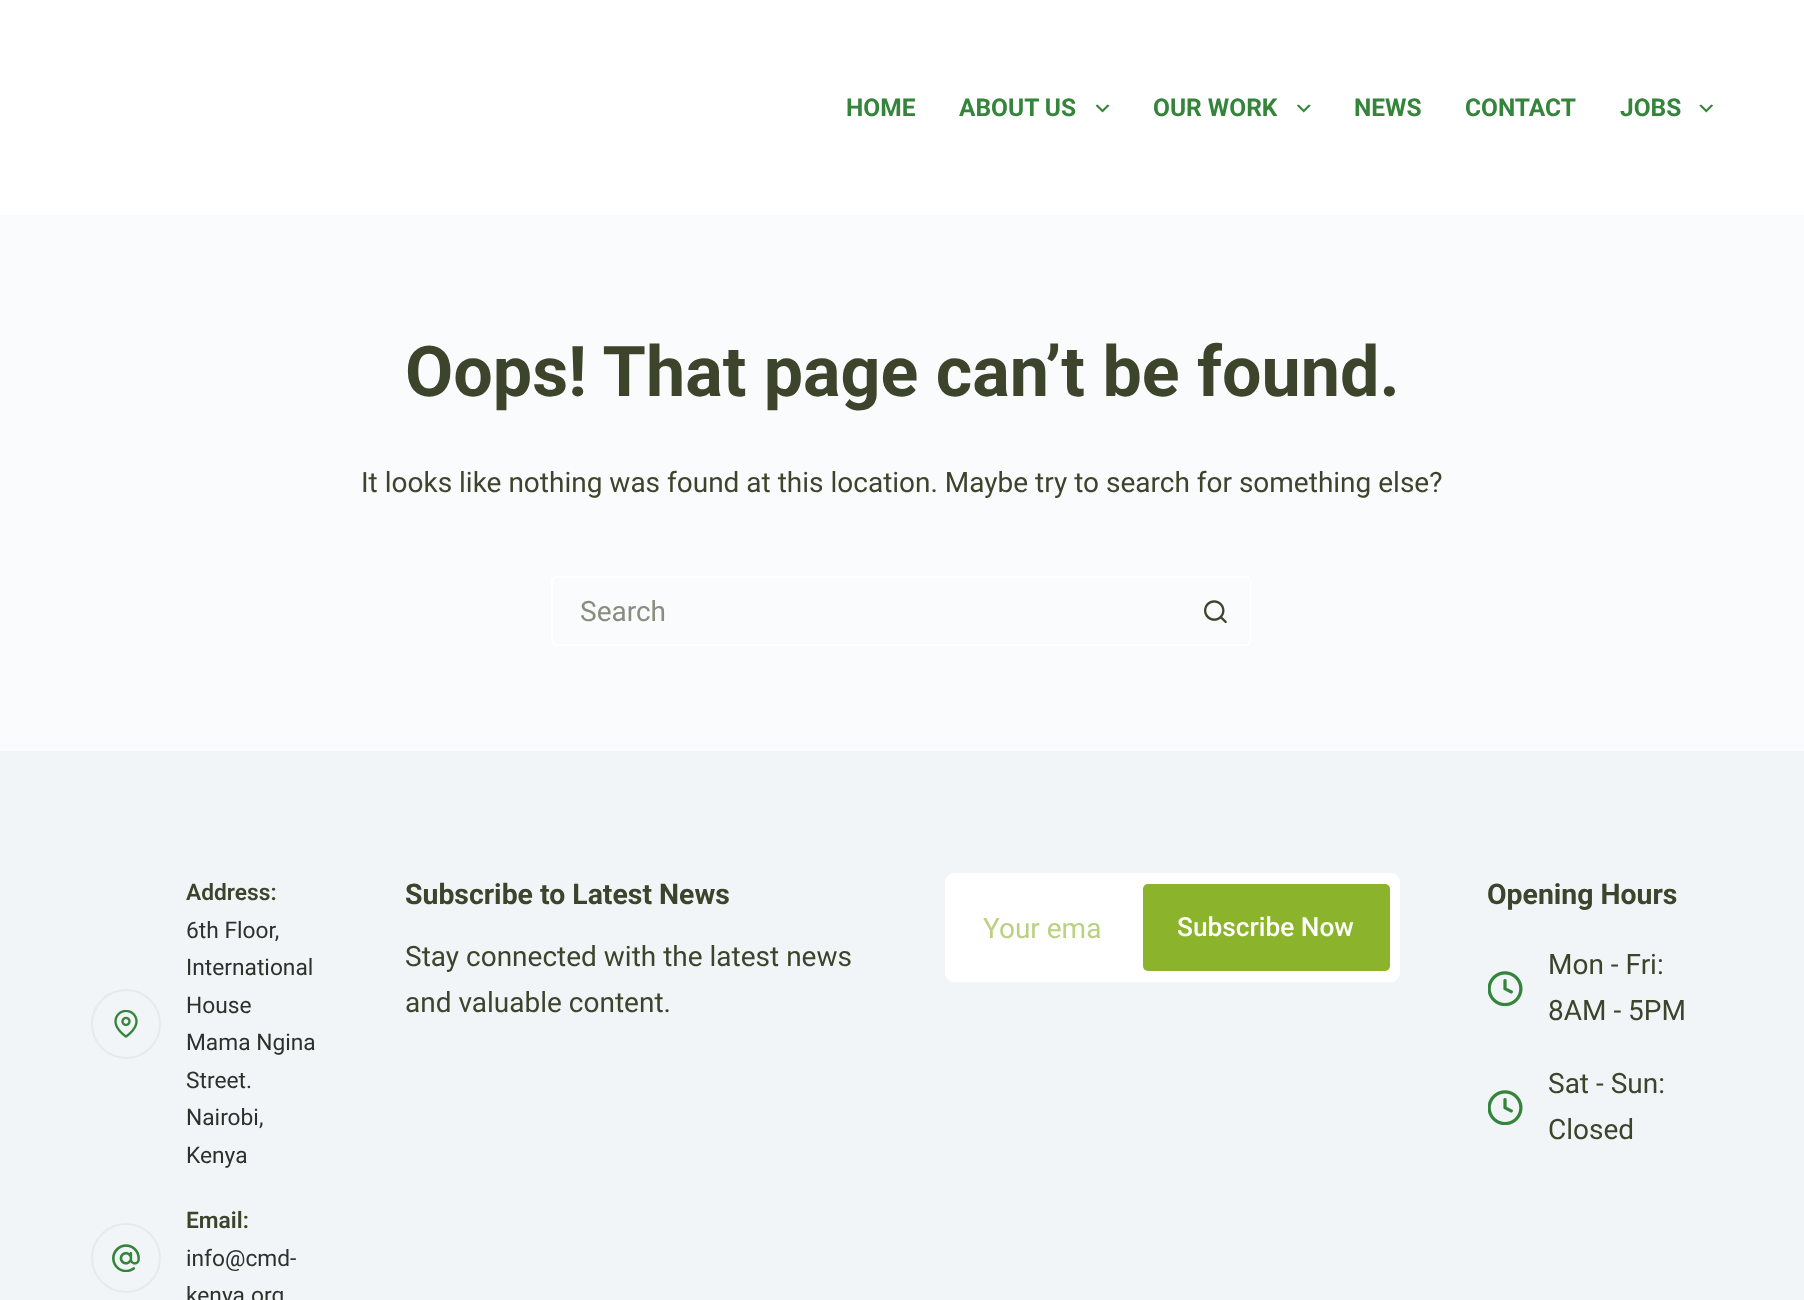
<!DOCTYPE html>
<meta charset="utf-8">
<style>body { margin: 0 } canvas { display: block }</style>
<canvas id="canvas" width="1804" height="1300"></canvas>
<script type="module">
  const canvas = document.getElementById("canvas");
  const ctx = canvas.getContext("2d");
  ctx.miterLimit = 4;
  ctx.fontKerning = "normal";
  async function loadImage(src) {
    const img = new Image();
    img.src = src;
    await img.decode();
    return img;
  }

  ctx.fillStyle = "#fafbfc";
  ctx.fillRect(0, 0, 1804, 1300);
  ctx.fillStyle = "#ffffff";
  ctx.fillRect(0, 0, 1804, 215);
  ctx.font = "bold 24.5px Roboto";
  ctx.fillStyle = "#34843b";
  ctx.fillText("HOME", 846, 116);
  ctx.fillText("ABOUT US", 959, 116);
  ctx.drawImage(await loadImage("img1.png"), 1096, 104, 14, 9);
  ctx.fillText("OUR WORK", 1153, 116);
  ctx.drawImage(await loadImage("img2.png"), 1297, 104, 14, 9);
  ctx.fillText("NEWS", 1354, 116);
  ctx.fillText("CONTACT", 1465, 116);
  ctx.fillText("JOBS", 1620, 116);
  ctx.drawImage(await loadImage("img3.png"), 1699, 104, 14, 9);
  ctx.font = "bold 70px Roboto";
  ctx.fillStyle = "#3c442c";
  ctx.fillText("Oops! That page can’t be found.", 405, 396);
  ctx.font = "28px Roboto";
  ctx.fillText("It looks like nothing was found at this location. Maybe try to search for something else?", 361, 492);
  ctx.fillStyle = "#ffffff";
  ctx.beginPath();
  ctx.moveTo(556, 576);
  ctx.lineTo(1181, 576);
  ctx.lineTo(1181, 646);
  ctx.lineTo(556, 646);
  ctx.bezierCurveTo(554, 646, 551, 643, 551, 640);
  ctx.lineTo(551, 581);
  ctx.bezierCurveTo(551, 578, 554, 576, 556, 576);
  ctx.closePath();
  ctx.moveTo(556, 578);
  ctx.lineTo(1181, 578);
  ctx.lineTo(1181, 644);
  ctx.lineTo(556, 644);
  ctx.bezierCurveTo(555, 644, 553, 642, 553, 640);
  ctx.lineTo(553, 581);
  ctx.bezierCurveTo(553, 579, 555, 578, 556, 578);
  ctx.closePath();
  ctx.fill("evenodd");
  ctx.fillStyle = "#888d7f";
  ctx.fillText("Search", 580, 621);
  ctx.fillStyle = "#ffffff";
  ctx.beginPath();
  ctx.moveTo(1181, 576);
  ctx.lineTo(1246, 576);
  ctx.bezierCurveTo(1249, 576, 1251, 578, 1251, 581);
  ctx.lineTo(1251, 640);
  ctx.bezierCurveTo(1251, 643, 1249, 646, 1246, 646);
  ctx.lineTo(1181, 646);
  ctx.closePath();
  ctx.moveTo(1181, 578);
  ctx.lineTo(1246, 578);
  ctx.bezierCurveTo(1248, 578, 1250, 579, 1250, 581);
  ctx.lineTo(1250, 640);
  ctx.bezierCurveTo(1250, 642, 1248, 644, 1246, 644);
  ctx.lineTo(1181, 644);
  ctx.closePath();
  ctx.fill("evenodd");
  ctx.drawImage(await loadImage("img4.png"), 1204, 600, 23, 23);
  ctx.fillStyle = "#f2f5f7";
  ctx.fillRect(0, 751, 1804, 549);
  ctx.beginPath();
  ctx.arc(126, 1024, 34, 0, Math.PI * 2);
  ctx.strokeStyle = "#e6eaee";
  ctx.lineWidth = 2;
  ctx.stroke();
  ctx.drawImage(await loadImage("img5.png"), 114, 1010, 24, 28);
  ctx.font = "600 22.75px Roboto";
  ctx.fillStyle = "#3c442c";
  ctx.fillText("Address:", 186, 900);
  ctx.font = "22.75px Roboto";
  ctx.fillStyle = "#2c312c";
  ctx.fillText("6th Floor,", 186, 938);
  ctx.fillText("International", 186, 975);
  ctx.fillText("House", 186, 1013);
  ctx.fillText("Mama Ngina", 186, 1050);
  ctx.fillText("Street.", 186, 1088);
  ctx.fillText("Nairobi,", 186, 1125);
  ctx.fillText("Kenya", 186, 1163);
  ctx.beginPath();
  ctx.arc(126, 1258, 34, 0, Math.PI * 2);
  ctx.stroke();
  ctx.drawImage(await loadImage("img6.png"), 112, 1244, 28, 28);
  ctx.font = "600 22.75px Roboto";
  ctx.fillStyle = "#3c442c";
  ctx.fillText("Email:", 186, 1228);
  ctx.font = "22.75px Roboto";
  ctx.fillStyle = "#2c312c";
  ctx.fillText("info@cmd-", 186, 1266);
  ctx.fillText("kenya.org", 186, 1303);
  ctx.font = "bold 28.4px Roboto";
  ctx.fillStyle = "#3c442c";
  ctx.fillText("Subscribe to Latest News", 405, 904);
  ctx.font = "28px Roboto";
  ctx.fillText("Stay connected with the latest news", 405, 966);
  ctx.fillText("and valuable content.", 405, 1012);
  ctx.fillStyle = "#ffffff";
  ctx.beginPath();
  ctx.roundRect(946, 874, 453, 107, 8);
  ctx.fill();
  ctx.strokeStyle = "#ffffff";
  ctx.stroke();
  ctx.fillStyle = "#b9d180";
  ctx.fillText("Your ema", 983, 938);
  ctx.fillStyle = "#8bb32c";
  ctx.beginPath();
  ctx.roundRect(1143, 884, 247, 87, 5);
  ctx.fill();
  ctx.font = "500 26.25px Roboto";
  ctx.fillStyle = "#ffffff";
  ctx.fillText("Subscribe Now", 1177, 936);
  ctx.font = "bold 28.4px Roboto";
  ctx.fillStyle = "#3c442c";
  ctx.fillText("Opening Hours", 1487, 904);
  ctx.drawImage(await loadImage("img7.png"), 1488, 971, 35, 35);
  ctx.font = "28px Roboto";
  ctx.fillText("Mon - Fri:", 1548, 974);
  ctx.fillText("8AM - 5PM", 1548, 1020);
  ctx.drawImage(await loadImage("img7.png"), 1488, 1090, 35, 35);
  ctx.fillText("Sat - Sun:", 1548, 1093);
  ctx.fillText("Closed", 1548, 1139);
</script>
